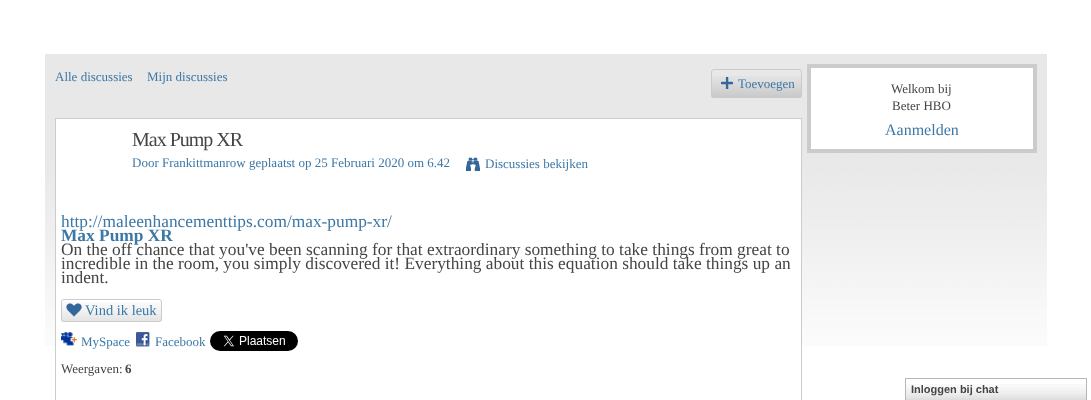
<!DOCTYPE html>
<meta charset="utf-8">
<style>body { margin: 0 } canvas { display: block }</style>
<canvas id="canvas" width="1091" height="400"></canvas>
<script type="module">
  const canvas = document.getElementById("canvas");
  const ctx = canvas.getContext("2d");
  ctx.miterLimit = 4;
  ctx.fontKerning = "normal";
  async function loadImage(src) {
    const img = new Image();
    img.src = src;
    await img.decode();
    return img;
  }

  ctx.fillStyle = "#ffffff";
  ctx.fillRect(0, 0, 1091, 400);
  ctx.drawImage(await loadImage("img1.png"), 45, 54, 1002, 292);
  ctx.font = "13px Liberation Serif";
  ctx.fillStyle = "#3c78a7";
  ctx.fillText("Alle discussies", 55, 81);
  ctx.fillText("Mijn discussies", 147, 81);
  ctx.drawImage(await loadImage("img2.png"), 711, 76, 91, 22);
  ctx.beginPath();
  ctx.roundRect(711.5, 69.5, 90, 28, 2.5);
  ctx.strokeStyle = "#cbcbcb";
  ctx.stroke();
  ctx.drawImage(await loadImage("img3.png"), 721, 77, 12, 12);
  ctx.fillText("Toevoegen", 738, 88);
  ctx.fillStyle = "#ffffff";
  ctx.fillRect(56, 119, 745, 227);
  ctx.strokeStyle = "#cccccc";
  ctx.strokeRect(55.5, 118.5, 746, 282);
  ctx.letterSpacing = "-1px";
  ctx.font = "20px Liberation Serif";
  ctx.fillStyle = "#454545";
  ctx.fillText("Max Pump XR", 132, 146);
  ctx.letterSpacing = "0px";
  ctx.font = "13px Liberation Serif";
  ctx.fillStyle = "#3c78a7";
  ctx.fillText("Door Frankittmanrow geplaatst op 25 Februari 2020 om 6.42", 132, 167);
  ctx.drawImage(await loadImage("img4.png"), 466, 157, 14, 14);
  ctx.fillText("Discussies bekijken", 485, 168);
  ctx.font = "17.35px Liberation Serif";
  ctx.fillText("http://maleenhancementtips.com/max-pump-xr/", 61, 227);
  ctx.font = "bold 17.35px Liberation Serif";
  ctx.fillText("Max Pump XR", 61, 241);
  ctx.font = "17.35px Liberation Serif";
  ctx.fillStyle = "#454545";
  ctx.fillText("On the off chance that you've been scanning for that extraordinary something to take things from great to", 61, 255);
  ctx.fillText("incredible in the room, you simply discovered it! Everything about this equation should take things up an", 61, 269);
  ctx.fillText("indent.", 61, 283);
  ctx.drawImage(await loadImage("img5.png"), 61, 302, 101, 20);
  ctx.beginPath();
  ctx.roundRect(61.5, 299.5, 100, 22, 2.5);
  ctx.strokeStyle = "#cbcbcb";
  ctx.stroke();
  ctx.drawImage(await loadImage("img6.png"), 66, 303, 16, 14);
  ctx.font = "14.5px Liberation Serif";
  ctx.fillStyle = "#3c78a7";
  ctx.fillText("Vind ik leuk", 85, 315);
  ctx.drawImage(await loadImage("img7.png"), 61, 332, 16, 14);
  ctx.font = "13px Liberation Serif";
  ctx.fillText("MySpace", 81, 346);
  ctx.drawImage(await loadImage("img8.png"), 136, 332, 14, 15);
  ctx.fillText("Facebook", 155, 346);
  ctx.drawImage(await loadImage("img9.png"), 210, 331, 88, 20);
  ctx.fillStyle = "#454545";
  ctx.fillText("Weergaven:", 61, 373);
  ctx.font = "bold 13px Liberation Serif";
  ctx.fillText("6", 125, 373);
  ctx.fillStyle = "#ffffff";
  ctx.fillRect(811, 68, 222, 81);
  ctx.strokeStyle = "#cccccc";
  ctx.strokeRect(807.5, 64.5, 229, 88);
  ctx.strokeStyle = "#cbcbcb";
  ctx.lineWidth = 3;
  ctx.strokeRect(809.5, 66.5, 225, 84);
  ctx.font = "13px Liberation Serif";
  ctx.fillStyle = "#454545";
  ctx.fillText("Welkom bij", 891, 93);
  ctx.fillText("Beter HBO", 892, 110);
  ctx.font = "16px Liberation Serif";
  ctx.fillStyle = "#3c78a7";
  ctx.fillText("Aanmelden", 885, 135);
  ctx.drawImage(await loadImage("img10.png"), 906, 384, 180, 16);
  ctx.strokeStyle = "#b7b7b7";
  ctx.lineWidth = 1;
  ctx.strokeRect(905.5, 378.5, 181, 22);
  ctx.font = "bold 11px Liberation Sans";
  ctx.fillStyle = "#454545";
  ctx.fillText("Inloggen bij chat", 911, 393);
</script>
